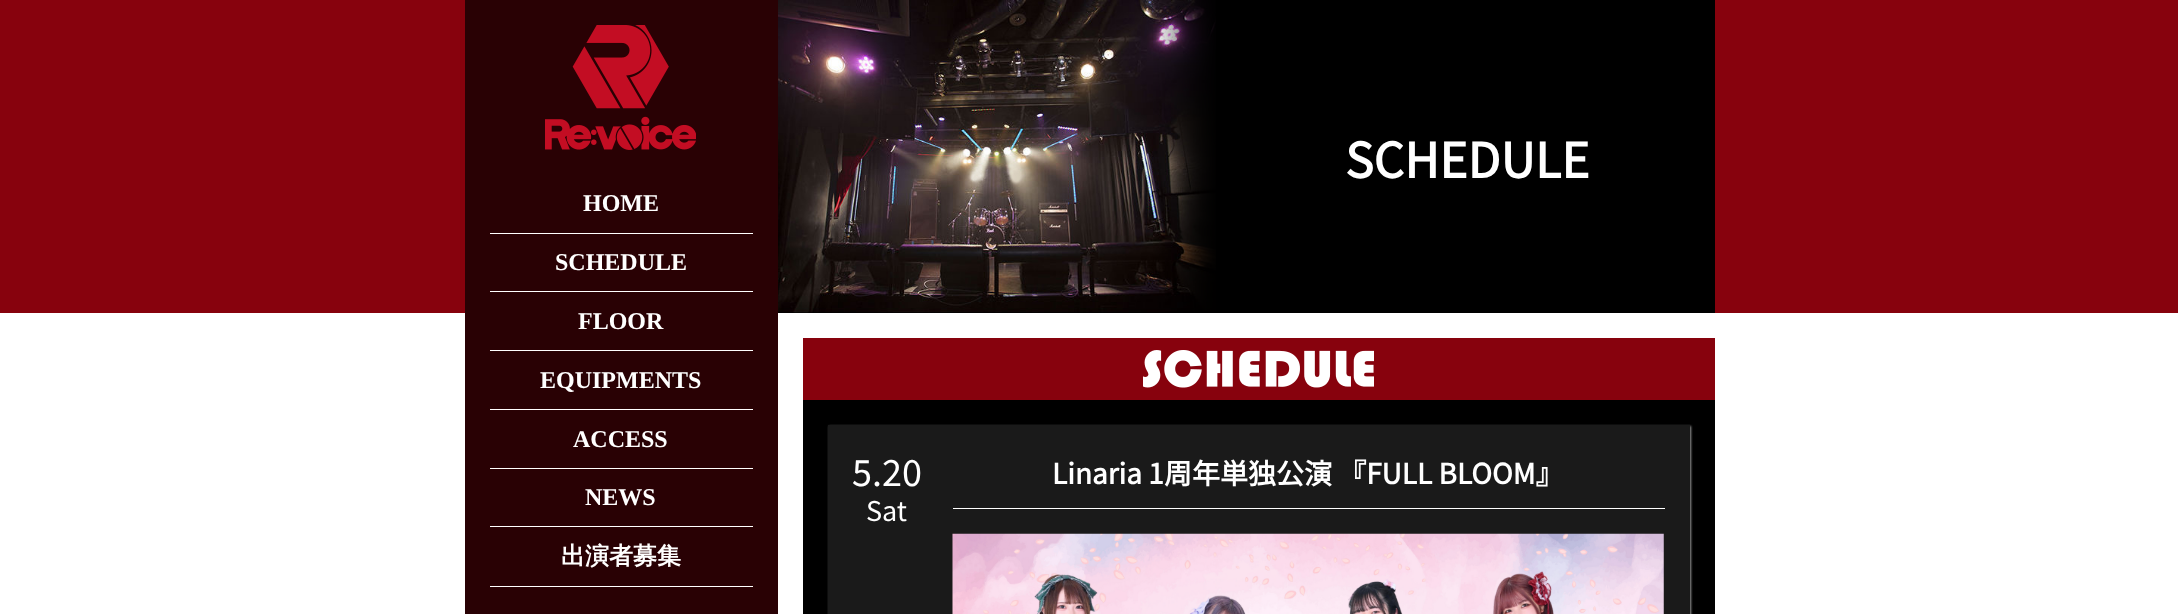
<!DOCTYPE html>
<meta charset="utf-8">
<style>body { margin: 0 } canvas { display: block }</style>
<canvas id="canvas" width="2178" height="614"></canvas>
<script type="module">
  const canvas = document.getElementById("canvas");
  const ctx = canvas.getContext("2d");
  ctx.miterLimit = 4;
  ctx.fontKerning = "normal";
  async function loadImage(src) {
    const img = new Image();
    img.src = src;
    await img.decode();
    return img;
  }

  ctx.fillStyle = "#ffffff";
  ctx.fillRect(0, 0, 2178, 614);
  ctx.fillStyle = "#87020d";
  ctx.fillRect(0, 0, 2178, 313);
  ctx.fillStyle = "#290104";
  ctx.fillRect(465, 0, 313, 614);
  ctx.drawImage(await loadImage("img1.png"), 545, 25, 151, 125);
  ctx.fillStyle = "#ffffff";
  ctx.fillRect(490, 233, 263, 1);
  ctx.font = "bold 24px Liberation Serif";
  ctx.fillText("HOME", 583, 211);
  ctx.fillRect(490, 291, 263, 1);
  ctx.fillText("SCHEDULE", 555, 270);
  ctx.fillRect(490, 350, 263, 1);
  ctx.fillText("FLOOR", 578, 329);
  ctx.fillRect(490, 409, 263, 1);
  ctx.fillText("EQUIPMENTS", 540, 388);
  ctx.fillRect(490, 468, 263, 1);
  ctx.fillText("ACCESS", 573, 447);
  ctx.fillRect(490, 526, 263, 1);
  ctx.fillText("NEWS", 585, 505);
  ctx.fillRect(490, 586, 263, 1);
  ctx.font = "bold 24px WenQuanYi Zen Hei";
  ctx.fillText("出演者募集", 561, 564);
  ctx.fillStyle = "#000000";
  ctx.fillRect(778, 0, 937, 313);
  ctx.drawImage(await loadImage("img2.png"), 778, 0, 438, 313);
  ctx.font = "bold 48px Noto Sans JP";
  ctx.fillStyle = "#ffffff";
  ctx.fillText("SCHEDULE", 1345, 178);
  ctx.fillStyle = "#000000";
  ctx.fillRect(803, 400, 912, 214);
  ctx.fillStyle = "#87020d";
  ctx.fillRect(803, 338, 912, 62);
  ctx.drawImage(await loadImage("img3.png"), 1143, 350, 231, 38);
  ctx.fillStyle = "#999999";
  ctx.filter = "blur(1px)";
  ctx.beginPath();
  ctx.rect(829, 426, 862, 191);
  ctx.fill();
  ctx.filter = "none";
  ctx.fillStyle = "#1a1a1a";
  ctx.fillRect(828, 425, 862, 189);
  ctx.font = "100 36px Noto Sans JP";
  ctx.fillStyle = "#ffffff";
  ctx.fillText("5.20", 852, 486);
  ctx.font = "100 27px Noto Sans JP";
  ctx.fillText("Sat", 866, 521);
  ctx.fillRect(953, 508, 712, 1);
  ctx.font = "bold 28px Noto Sans JP";
  ctx.fillText("Linaria 1周年単独公演 『FULL BLOOM』", 1052, 484);
  ctx.drawImage(await loadImage("img4.png"), 952, 533, 712, 81);
</script>
